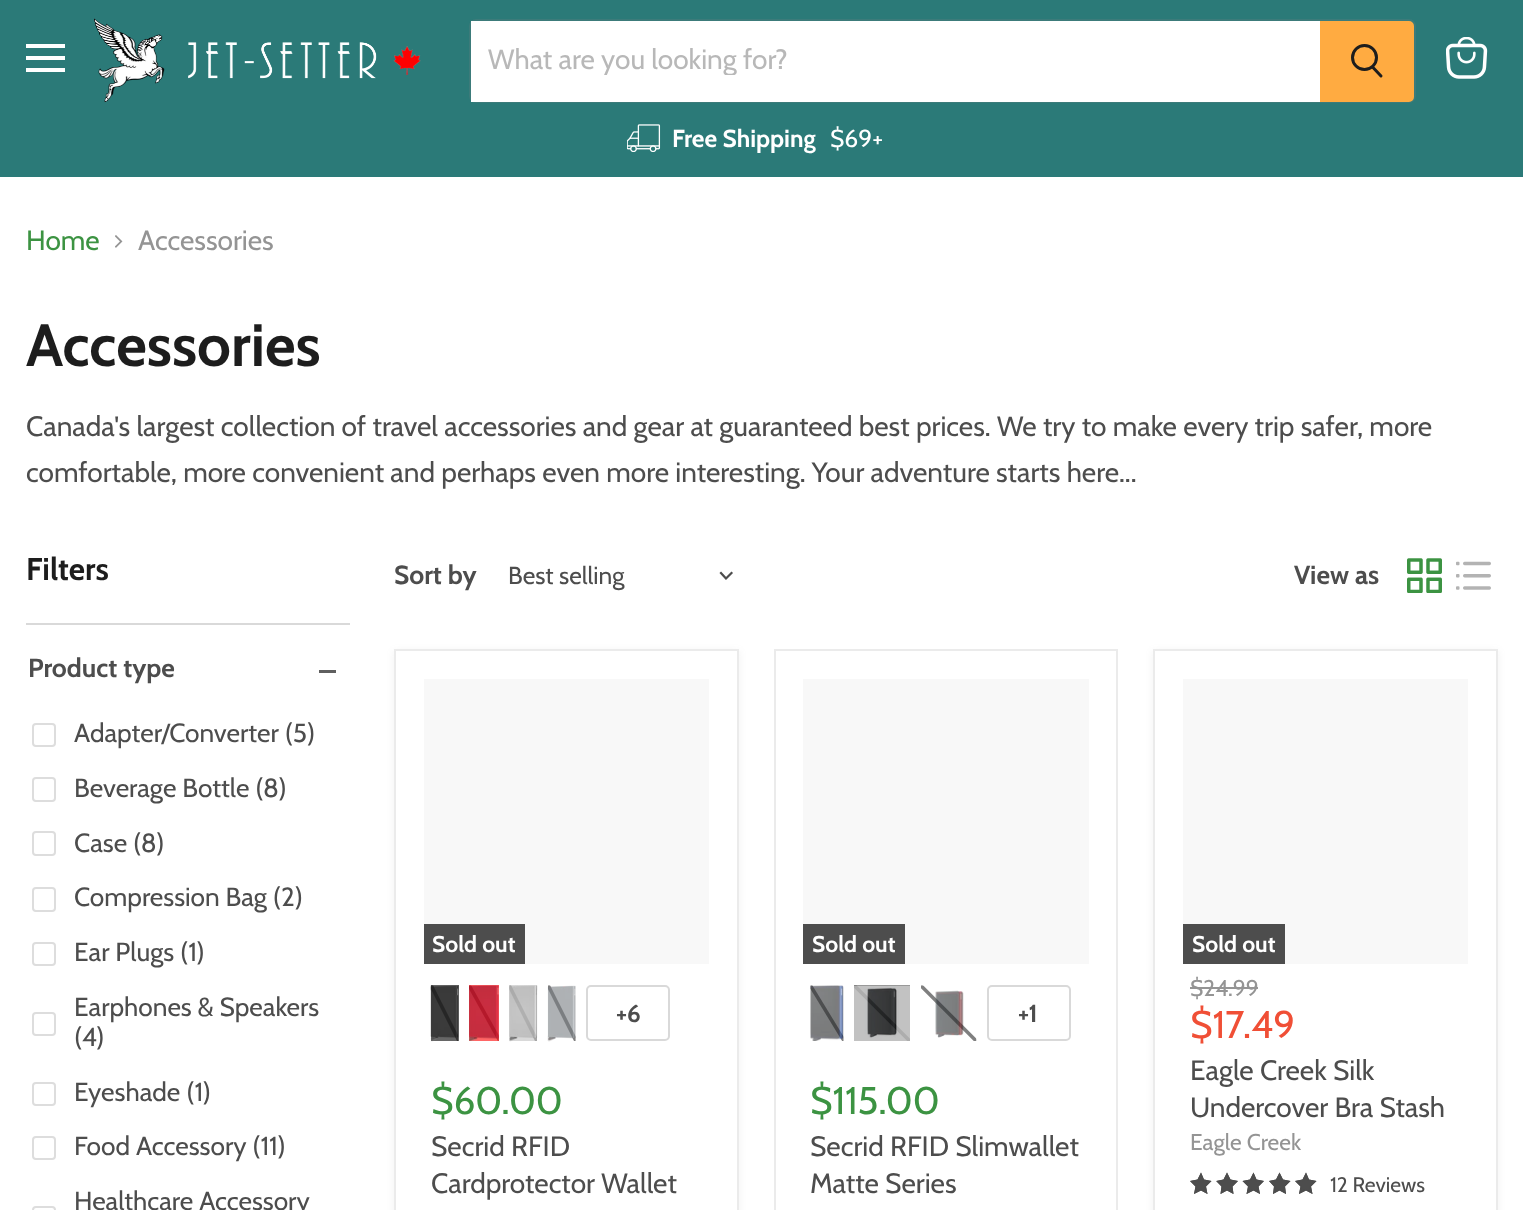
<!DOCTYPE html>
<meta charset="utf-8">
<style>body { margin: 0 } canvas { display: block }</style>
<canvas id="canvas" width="1523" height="1210"></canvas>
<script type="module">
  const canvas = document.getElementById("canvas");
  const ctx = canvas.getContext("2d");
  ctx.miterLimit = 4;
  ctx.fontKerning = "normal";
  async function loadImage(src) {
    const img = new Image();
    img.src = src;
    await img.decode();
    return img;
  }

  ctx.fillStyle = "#ffffff";
  ctx.fillRect(0, 0, 1523, 1210);
  ctx.fillStyle = "#666666";
  ctx.fillRect(854, 985, 56, 56);
  ctx.fillStyle = "#2b7a78";
  ctx.fillRect(0, 0, 1523, 177);
  ctx.fillStyle = "#ffffff";
  ctx.fillRect(26, 44, 39, 4);
  ctx.fillRect(26, 56, 39, 4);
  ctx.fillRect(26, 68, 39, 4);
  ctx.drawImage(await loadImage("img1.png"), 94, 18, 327, 84);
  ctx.beginPath();
  ctx.roundRect(470, 20, 945, 82, 6);
  ctx.strokeStyle = "rgba(128, 128, 128, 0.2)";
  ctx.lineWidth = 2;
  ctx.stroke();
  ctx.fillRect(471, 21, 849, 81);
  ctx.save();
  ctx.beginPath();
  ctx.rect(488, 42, 814, 33);
  ctx.clip();
  ctx.font = "28px Cabin";
  ctx.fillStyle = "#b8b8b8";
  ctx.fillText("What are you looking for?", 488, 69);
  ctx.restore();
  ctx.fillStyle = "#ffab41";
  ctx.beginPath();
  ctx.roundRect(1321, 22, 92, 79, [0, 4, 4, 0]);
  ctx.fill();
  ctx.strokeStyle = "#ffab41";
  ctx.stroke();
  ctx.beginPath();
  ctx.moveTo(1381, 76);
  ctx.lineTo(1373, 67.5);
  ctx.strokeStyle = "#1d1d1d";
  ctx.lineWidth = 3;
  ctx.lineCap = "round";
  ctx.stroke();
  ctx.beginPath();
  ctx.arc(1364.5, 57.5, 12, 0, Math.PI * 2);
  ctx.stroke();
  ctx.drawImage(await loadImage("img2.png"), 627, 124, 34, 28);
  ctx.font = "bold 24.5px Cabin";
  ctx.fillStyle = "#ffffff";
  ctx.fillText("Free Shipping", 672, 147);
  ctx.font = "24.5px Cabin";
  ctx.fillText("$69+", 830, 147);
  ctx.drawImage(await loadImage("img3.png"), 1446, 37, 42, 42);
  ctx.font = "28px Cabin";
  ctx.fillStyle = "#3c9342";
  ctx.fillText("Home", 26, 250);
  ctx.drawImage(await loadImage("img4.png"), 115, 235, 8, 13);
  ctx.fillStyle = "#949494";
  ctx.fillText("Accessories", 138, 250);
  ctx.font = "bold 59.5px Cabin";
  ctx.fillStyle = "#1d1d1d";
  ctx.fillText("Accessories", 26, 366);
  ctx.font = "28px Cabin";
  ctx.fillStyle = "#4d4d4d";
  ctx.fillText("Canada's largest collection of travel accessories and gear at guaranteed best prices. We try to make every trip safer, more", 26, 436);
  ctx.fillText("comfortable, more convenient and perhaps even more interesting. Your adventure starts here...", 26, 482);
  ctx.font = "bold 31.5px Cabin";
  ctx.fillStyle = "#1d1d1d";
  ctx.fillText("Filters", 26, 580);
  ctx.fillStyle = "#d9d9d9";
  ctx.fillRect(26, 623, 324, 2);
  ctx.font = "bold 26.25px Cabin";
  ctx.fillStyle = "#4d4d4d";
  ctx.fillText("Product type", 28, 677);
  ctx.fillStyle = "#5f5f5f";
  ctx.fillRect(319, 670, 17, 3);
  ctx.beginPath();
  ctx.roundRect(33, 724, 22, 22, 3);
  ctx.strokeStyle = "#dddddd";
  ctx.lineWidth = 2;
  ctx.stroke();
  ctx.font = "26.25px Cabin";
  ctx.fillStyle = "#4d4d4d";
  ctx.fillText("Adapter/Converter (5)", 74, 742);
  ctx.beginPath();
  ctx.roundRect(33, 778, 22, 23, 3);
  ctx.stroke();
  ctx.fillText("Beverage Bottle (8)", 74, 797);
  ctx.beginPath();
  ctx.roundRect(33, 832, 22, 23, 3);
  ctx.stroke();
  ctx.fillText("Case (8)", 74, 852);
  ctx.beginPath();
  ctx.roundRect(33, 888, 22, 23, 3);
  ctx.stroke();
  ctx.fillText("Compression Bag (2)", 74, 906);
  ctx.beginPath();
  ctx.roundRect(33, 943, 22, 22, 3);
  ctx.stroke();
  ctx.fillText("Ear Plugs (1)", 74, 961);
  ctx.beginPath();
  ctx.roundRect(33, 1013, 22, 22, 3);
  ctx.stroke();
  ctx.fillText("Earphones & Speakers", 74, 1016);
  ctx.fillText("(4)", 74, 1046);
  ctx.beginPath();
  ctx.roundRect(33, 1083, 22, 22, 3);
  ctx.stroke();
  ctx.fillText("Eyeshade (1)", 74, 1101);
  ctx.beginPath();
  ctx.roundRect(33, 1137, 22, 22, 3);
  ctx.stroke();
  ctx.fillText("Food Accessory (11)", 74, 1155);
  ctx.fillText("Healthcare Accessory", 74, 1210);
  ctx.beginPath();
  ctx.roundRect(33, 1207, 22, 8, 3);
  ctx.stroke();
  ctx.font = "bold 26.25px Cabin";
  ctx.fillText("Sort by", 394, 584);
  ctx.font = "24.5px Cabin";
  ctx.fillText("Best selling", 508, 584);
  ctx.beginPath();
  ctx.moveTo(726, 578.5);
  ctx.lineTo(731.5, 573);
  ctx.moveTo(726, 578.5);
  ctx.lineTo(721, 573);
  ctx.strokeStyle = "#4d4d4d";
  ctx.lineWidth = 2.2;
  ctx.lineCap = "square";
  ctx.stroke();
  ctx.font = "bold 26.25px Cabin";
  ctx.fillText("View as", 1294, 584);
  ctx.drawImage(await loadImage("img5.png"), 1407, 558, 35, 35);
  ctx.drawImage(await loadImage("img6.png"), 1456, 561, 35, 29);
  ctx.fillStyle = "rgba(128, 128, 128, 0.11)";
  ctx.filter = "blur(3.5px)";
  ctx.beginPath();
  ctx.rect(394, 651, 345, 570);
  ctx.fill();
  ctx.filter = "none";
  ctx.fillStyle = "#ffffff";
  ctx.fillRect(396, 651, 341, 559);
  ctx.fillStyle = "#d9d9d9";
  ctx.fillRect(509, 985, 28, 56);
  ctx.fillStyle = "#ff6666";
  ctx.fillRect(469, 985, 30, 56);
  ctx.fillStyle = "#666666";
  ctx.fillRect(431, 985, 28, 56);
  ctx.strokeStyle = "#ebebeb";
  ctx.lineWidth = 2;
  ctx.strokeRect(395, 650, 343, 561);
  ctx.fillStyle = "#f8f8f8";
  ctx.fillRect(424, 679, 285, 285);
  ctx.fillStyle = "#4d4d4d";
  ctx.fillRect(424, 924, 101, 40);
  ctx.font = "bold 22.75px Cabin";
  ctx.fillStyle = "#ffffff";
  ctx.fillText("Sold out", 432, 952);
  ctx.drawImage(await loadImage("img7.png"), 430, 985, 29, 57);
  ctx.drawImage(await loadImage("img8.png"), 430, 985, 29, 56);
  ctx.drawImage(await loadImage("img9.png"), 469, 985, 30, 56);
  ctx.drawImage(await loadImage("img10.png"), 469, 985, 30, 56);
  ctx.drawImage(await loadImage("img11.png"), 509, 985, 29, 57);
  ctx.drawImage(await loadImage("img12.png"), 509, 985, 29, 56);
  ctx.drawImage(await loadImage("img13.png"), 547, 985, 29, 57);
  ctx.drawImage(await loadImage("img14.png"), 547, 985, 29, 56);
  ctx.beginPath();
  ctx.roundRect(587, 986, 82, 54, 4);
  ctx.strokeStyle = "#d9d9d9";
  ctx.stroke();
  ctx.font = "bold 24.5px Cabin";
  ctx.fillStyle = "#4d4d4d";
  ctx.fillText("+6", 616, 1022);
  ctx.font = "38.5px Cabin";
  ctx.fillStyle = "#3c9342";
  ctx.fillText("$60.00", 431, 1114);
  ctx.font = "28px Cabin";
  ctx.fillStyle = "#4d4d4d";
  ctx.fillText("Secrid RFID", 431, 1156);
  ctx.fillText("Cardprotector Wallet", 431, 1193);
  ctx.strokeStyle = "#ebebeb";
  ctx.strokeRect(775, 650, 342, 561);
  ctx.fillStyle = "#f8f8f8";
  ctx.fillRect(803, 679, 286, 285);
  ctx.fillStyle = "#4d4d4d";
  ctx.fillRect(803, 924, 102, 40);
  ctx.font = "bold 22.75px Cabin";
  ctx.fillStyle = "#ffffff";
  ctx.fillText("Sold out", 812, 952);
  ctx.drawImage(await loadImage("img15.png"), 810, 985, 34, 56);
  ctx.drawImage(await loadImage("img16.png"), 810, 985, 34, 56);
  ctx.drawImage(await loadImage("img17.png"), 854, 985, 56, 56);
  ctx.drawImage(await loadImage("img18.png"), 854, 985, 56, 56);
  ctx.drawImage(await loadImage("img19.png"), 921, 985, 56, 56);
  ctx.drawImage(await loadImage("img20.png"), 935, 990, 29, 48);
  ctx.beginPath();
  ctx.roundRect(988, 986, 82, 54, 4);
  ctx.strokeStyle = "#d9d9d9";
  ctx.stroke();
  ctx.font = "bold 24.5px Cabin";
  ctx.fillStyle = "#4d4d4d";
  ctx.fillText("+1", 1018, 1022);
  ctx.font = "38.5px Cabin";
  ctx.fillStyle = "#3c9342";
  ctx.fillText("$115.00", 810, 1114);
  ctx.font = "28px Cabin";
  ctx.fillStyle = "#4d4d4d";
  ctx.fillText("Secrid RFID Slimwallet", 810, 1156);
  ctx.fillText("Matte Series", 810, 1193);
  ctx.fillStyle = "rgba(128, 128, 128, 0.11)";
  ctx.filter = "blur(3.5px)";
  ctx.beginPath();
  ctx.rect(1153, 651, 345, 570);
  ctx.fill();
  ctx.filter = "none";
  ctx.fillStyle = "#ffffff";
  ctx.beginPath();
  ctx.rect(1154, 650, 343, 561);
  ctx.fill();
  ctx.strokeStyle = "#ebebeb";
  ctx.stroke();
  ctx.fillStyle = "#f8f8f8";
  ctx.fillRect(1183, 679, 285, 285);
  ctx.fillStyle = "#4d4d4d";
  ctx.fillRect(1183, 924, 102, 40);
  ctx.font = "bold 22.75px Cabin";
  ctx.fillStyle = "#ffffff";
  ctx.fillText("Sold out", 1192, 952);
  ctx.font = "22.75px Cabin";
  ctx.fillStyle = "#949494";
  ctx.fillText("$24.99", 1190, 996);
  ctx.fillRect(1190, 987, 68, 2);
  ctx.font = "38.5px Cabin";
  ctx.fillStyle = "#f04f36";
  ctx.fillText("$17.49", 1190, 1038);
  ctx.font = "28px Cabin";
  ctx.fillStyle = "#4d4d4d";
  ctx.fillText("Eagle Creek Silk", 1190, 1080);
  ctx.fillText("Undercover Bra Stash", 1190, 1117);
  ctx.font = "22.75px Cabin";
  ctx.fillStyle = "#949494";
  ctx.fillText("Eagle Creek", 1190, 1150);
  ctx.fillStyle = "#4d4d4d";
  ctx.beginPath();
  ctx.moveTo(1201, 1172.5);
  ctx.lineTo(1197.5, 1179.5);
  ctx.lineTo(1190, 1181);
  ctx.lineTo(1195.5, 1186.5);
  ctx.lineTo(1194, 1194);
  ctx.lineTo(1201, 1190.5);
  ctx.lineTo(1207.5, 1194);
  ctx.lineTo(1206, 1186.5);
  ctx.lineTo(1211.5, 1181);
  ctx.lineTo(1204, 1179.5);
  ctx.closePath();
  ctx.fill();
  ctx.save();
  ctx.beginPath();
  ctx.moveTo(1201, 1172.5);
  ctx.lineTo(1204, 1179.5);
  ctx.lineTo(1211.5, 1181);
  ctx.lineTo(1206, 1186.5);
  ctx.lineTo(1207.5, 1194);
  ctx.lineTo(1201, 1190.5);
  ctx.lineTo(1194, 1194);
  ctx.lineTo(1195.5, 1186.5);
  ctx.lineTo(1190, 1181);
  ctx.lineTo(1197.5, 1179.5);
  ctx.closePath();
  ctx.clip();
  ctx.beginPath();
  ctx.moveTo(1201, 1172.5);
  ctx.lineTo(1204, 1179.5);
  ctx.lineTo(1211.5, 1181);
  ctx.lineTo(1206, 1186.5);
  ctx.lineTo(1207.5, 1194);
  ctx.lineTo(1201, 1190.5);
  ctx.lineTo(1194, 1194);
  ctx.lineTo(1195.5, 1186.5);
  ctx.lineTo(1190, 1181);
  ctx.lineTo(1197.5, 1179.5);
  ctx.closePath();
  ctx.strokeStyle = "#4d4d4d";
  ctx.lineWidth = 3.1;
  ctx.lineCap = "round";
  ctx.lineJoin = "round";
  ctx.stroke();
  ctx.restore();
  ctx.beginPath();
  ctx.moveTo(1227, 1172.5);
  ctx.lineTo(1223.5, 1179.5);
  ctx.lineTo(1216, 1181);
  ctx.lineTo(1221.5, 1186.5);
  ctx.lineTo(1220.5, 1194);
  ctx.lineTo(1227, 1190.5);
  ctx.lineTo(1233.5, 1194);
  ctx.lineTo(1232.5, 1186.5);
  ctx.lineTo(1238, 1181);
  ctx.lineTo(1230.5, 1179.5);
  ctx.closePath();
  ctx.fill();
  ctx.save();
  ctx.beginPath();
  ctx.moveTo(1227, 1172.5);
  ctx.lineTo(1230.5, 1179.5);
  ctx.lineTo(1238, 1181);
  ctx.lineTo(1232.5, 1186.5);
  ctx.lineTo(1233.5, 1194);
  ctx.lineTo(1227, 1190.5);
  ctx.lineTo(1220.5, 1194);
  ctx.lineTo(1221.5, 1186.5);
  ctx.lineTo(1216.5, 1181);
  ctx.lineTo(1223.5, 1179.5);
  ctx.closePath();
  ctx.clip();
  ctx.beginPath();
  ctx.moveTo(1227, 1172.5);
  ctx.lineTo(1230.5, 1179.5);
  ctx.lineTo(1238, 1181);
  ctx.lineTo(1232.5, 1186.5);
  ctx.lineTo(1233.5, 1194);
  ctx.lineTo(1227, 1190.5);
  ctx.lineTo(1220.5, 1194);
  ctx.lineTo(1221.5, 1186.5);
  ctx.lineTo(1216.5, 1181);
  ctx.lineTo(1223.5, 1179.5);
  ctx.closePath();
  ctx.strokeStyle = "#4d4d4d";
  ctx.lineWidth = 3.1;
  ctx.lineCap = "round";
  ctx.lineJoin = "round";
  ctx.stroke();
  ctx.restore();
  ctx.beginPath();
  ctx.moveTo(1253.5, 1172.5);
  ctx.lineTo(1250, 1179.5);
  ctx.lineTo(1242.5, 1181);
  ctx.lineTo(1248, 1186.5);
  ctx.lineTo(1246.5, 1194);
  ctx.lineTo(1253.5, 1190.5);
  ctx.lineTo(1260, 1194);
  ctx.lineTo(1258.5, 1186.5);
  ctx.lineTo(1264, 1181);
  ctx.lineTo(1256.5, 1179.5);
  ctx.closePath();
  ctx.fill();
  ctx.save();
  ctx.beginPath();
  ctx.moveTo(1253.5, 1172.5);
  ctx.lineTo(1256.5, 1179.5);
  ctx.lineTo(1264, 1181);
  ctx.lineTo(1258.5, 1186.5);
  ctx.lineTo(1260, 1194);
  ctx.lineTo(1253.5, 1190.5);
  ctx.lineTo(1246.5, 1194);
  ctx.lineTo(1248, 1186.5);
  ctx.lineTo(1242.5, 1181);
  ctx.lineTo(1250, 1179.5);
  ctx.closePath();
  ctx.clip();
  ctx.beginPath();
  ctx.moveTo(1253.5, 1172.5);
  ctx.lineTo(1256.5, 1179.5);
  ctx.lineTo(1264, 1181);
  ctx.lineTo(1258.5, 1186.5);
  ctx.lineTo(1260, 1194);
  ctx.lineTo(1253.5, 1190.5);
  ctx.lineTo(1246.5, 1194);
  ctx.lineTo(1248, 1186.5);
  ctx.lineTo(1242.5, 1181);
  ctx.lineTo(1250, 1179.5);
  ctx.closePath();
  ctx.strokeStyle = "#4d4d4d";
  ctx.lineWidth = 3.1;
  ctx.lineCap = "round";
  ctx.lineJoin = "round";
  ctx.stroke();
  ctx.restore();
  ctx.beginPath();
  ctx.moveTo(1279.5, 1172.5);
  ctx.lineTo(1276, 1179.5);
  ctx.lineTo(1269, 1181);
  ctx.lineTo(1274, 1186.5);
  ctx.lineTo(1273, 1194);
  ctx.lineTo(1279.5, 1190.5);
  ctx.lineTo(1286, 1194);
  ctx.lineTo(1285, 1186.5);
  ctx.lineTo(1290.5, 1181);
  ctx.lineTo(1283, 1179.5);
  ctx.closePath();
  ctx.fill();
  ctx.save();
  ctx.beginPath();
  ctx.moveTo(1279.5, 1172.5);
  ctx.lineTo(1283, 1179.5);
  ctx.lineTo(1290.5, 1181);
  ctx.lineTo(1285, 1186.5);
  ctx.lineTo(1286, 1194);
  ctx.lineTo(1279.5, 1190.5);
  ctx.lineTo(1273, 1194);
  ctx.lineTo(1274, 1186.5);
  ctx.lineTo(1269, 1181);
  ctx.lineTo(1276, 1179.5);
  ctx.closePath();
  ctx.clip();
  ctx.beginPath();
  ctx.moveTo(1279.5, 1172.5);
  ctx.lineTo(1283, 1179.5);
  ctx.lineTo(1290.5, 1181);
  ctx.lineTo(1285, 1186.5);
  ctx.lineTo(1286, 1194);
  ctx.lineTo(1279.5, 1190.5);
  ctx.lineTo(1273, 1194);
  ctx.lineTo(1274, 1186.5);
  ctx.lineTo(1269, 1181);
  ctx.lineTo(1276, 1179.5);
  ctx.closePath();
  ctx.strokeStyle = "#4d4d4d";
  ctx.lineWidth = 3.1;
  ctx.lineCap = "round";
  ctx.lineJoin = "round";
  ctx.stroke();
  ctx.restore();
  ctx.beginPath();
  ctx.moveTo(1306, 1172.5);
  ctx.lineTo(1302.5, 1179.5);
  ctx.lineTo(1295, 1181);
  ctx.lineTo(1300.5, 1186.5);
  ctx.lineTo(1299, 1194);
  ctx.lineTo(1306, 1190.5);
  ctx.lineTo(1312.5, 1194);
  ctx.lineTo(1311, 1186.5);
  ctx.lineTo(1316.5, 1181);
  ctx.lineTo(1309, 1179.5);
  ctx.closePath();
  ctx.fill();
  ctx.save();
  ctx.beginPath();
  ctx.moveTo(1306, 1172.5);
  ctx.lineTo(1309, 1179.5);
  ctx.lineTo(1316.5, 1181);
  ctx.lineTo(1311, 1186.5);
  ctx.lineTo(1312.5, 1194);
  ctx.lineTo(1306, 1190.5);
  ctx.lineTo(1299, 1194);
  ctx.lineTo(1300.5, 1186.5);
  ctx.lineTo(1295, 1181);
  ctx.lineTo(1302.5, 1179.5);
  ctx.closePath();
  ctx.clip();
  ctx.beginPath();
  ctx.moveTo(1306, 1172.5);
  ctx.lineTo(1309, 1179.5);
  ctx.lineTo(1316.5, 1181);
  ctx.lineTo(1311, 1186.5);
  ctx.lineTo(1312.5, 1194);
  ctx.lineTo(1306, 1190.5);
  ctx.lineTo(1299, 1194);
  ctx.lineTo(1300.5, 1186.5);
  ctx.lineTo(1295, 1181);
  ctx.lineTo(1302.5, 1179.5);
  ctx.closePath();
  ctx.strokeStyle = "#4d4d4d";
  ctx.lineWidth = 3.1;
  ctx.lineCap = "round";
  ctx.lineJoin = "round";
  ctx.stroke();
  ctx.restore();
  ctx.font = "21px Cabin";
  ctx.fillText("12 Reviews", 1330, 1192);
</script>
